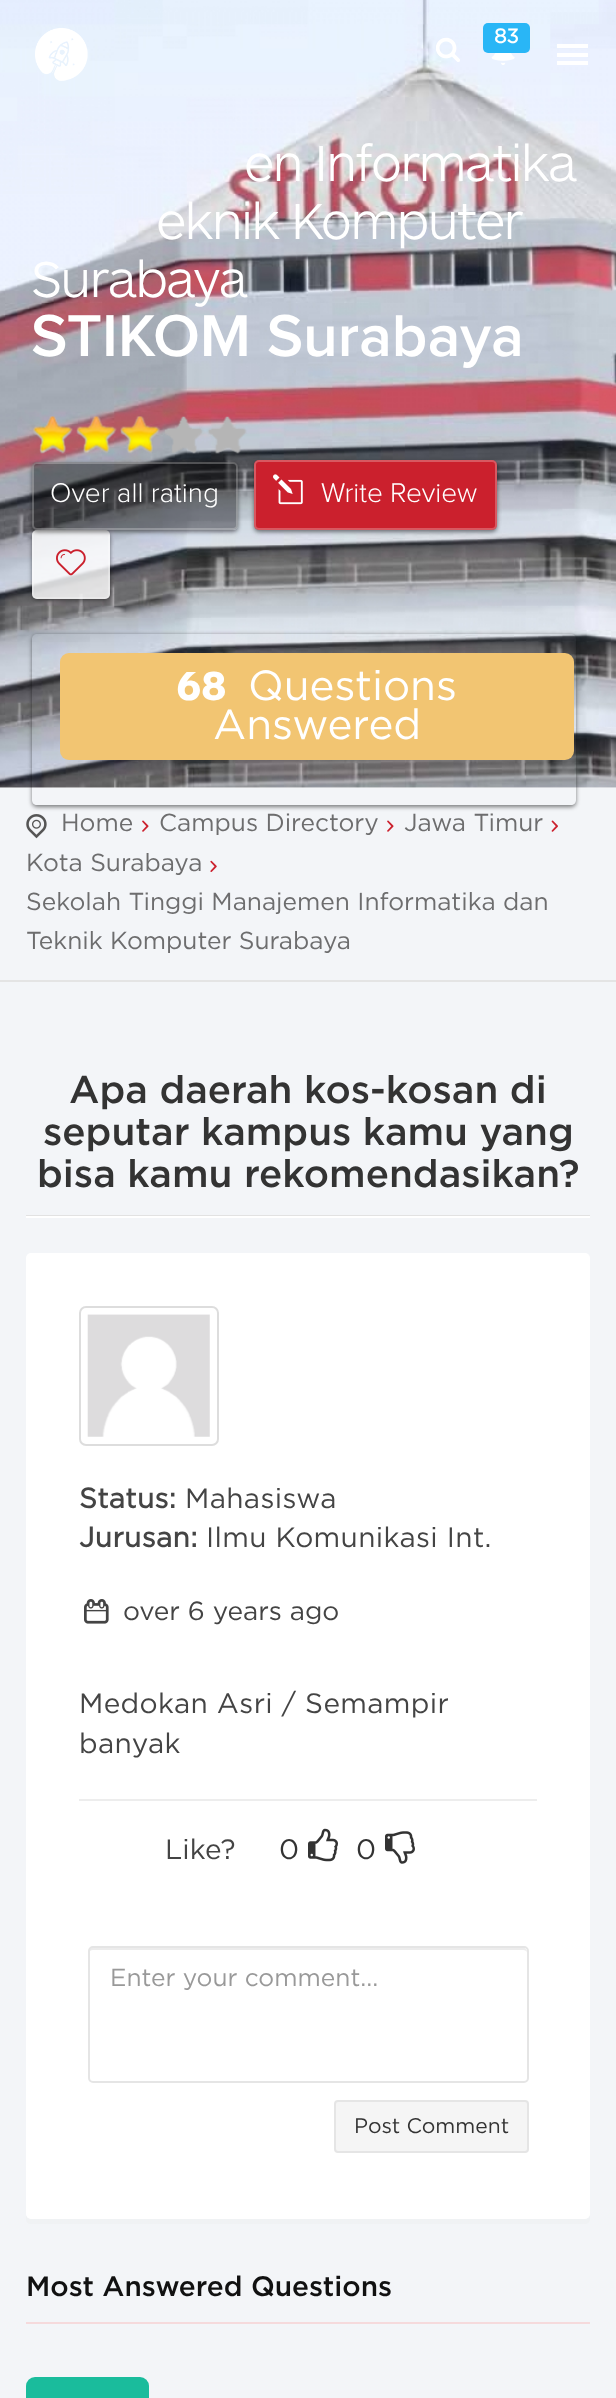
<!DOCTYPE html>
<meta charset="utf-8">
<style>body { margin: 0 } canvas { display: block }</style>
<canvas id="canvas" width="616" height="2398"></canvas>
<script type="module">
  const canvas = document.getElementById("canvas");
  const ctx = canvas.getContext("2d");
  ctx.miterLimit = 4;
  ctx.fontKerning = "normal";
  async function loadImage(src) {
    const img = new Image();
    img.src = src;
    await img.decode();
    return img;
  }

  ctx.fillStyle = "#ffffff";
  ctx.fillRect(0, 0, 616, 2398);
  ctx.drawImage(await loadImage("img4.png"), 0, 0, 616, 788);
  ctx.drawImage(await loadImage("img1.png"), 35, 28, 53, 53);
  ctx.drawImage(await loadImage("img2.png"), 436, 37, 24, 25);
  ctx.fillStyle = "#29b6f6";
  ctx.beginPath();
  ctx.roundRect(483, 23, 47, 30, 5);
  ctx.fill();
  ctx.font = "bold 20px Gotham";
  ctx.fillStyle = "#ffffff";
  ctx.fillText("83", 494, 43);
  ctx.drawImage(await loadImage("img3.png"), 491, 53, 24, 12);
  ctx.fillRect(557, 53, 31, 4);
  ctx.fillRect(557, 44, 31, 4);
  ctx.fillRect(557, 61, 31, 4);
  ctx.letterSpacing = "-1.75px";
  ctx.font = "300 52.5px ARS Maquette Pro";
  ctx.fillText("en Informatika", 244, 181);
  ctx.fillText("eknik Komputer", 156, 239);
  ctx.fillText("Surabaya", 31, 297);
  ctx.letterSpacing = "0px";
  ctx.font = "600 61.25px Proxima Nova";
  ctx.fillText("STIKOM Surabaya", 31, 356);
  ctx.save();
  ctx.beginPath();
  ctx.moveTo(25, 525);
  ctx.lineTo(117, 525);
  ctx.lineTo(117, 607);
  ctx.lineTo(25, 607);
  ctx.closePath();
  ctx.moveTo(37, 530);
  ctx.lineTo(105, 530);
  ctx.bezierCurveTo(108, 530, 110, 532, 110, 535);
  ctx.lineTo(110, 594);
  ctx.bezierCurveTo(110, 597, 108, 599, 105, 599);
  ctx.lineTo(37, 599);
  ctx.bezierCurveTo(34, 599, 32, 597, 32, 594);
  ctx.lineTo(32, 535);
  ctx.bezierCurveTo(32, 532, 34, 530, 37, 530);
  ctx.closePath();
  ctx.clip("evenodd");
  ctx.fillStyle = "rgba(0, 0, 0, 0.5)";
  ctx.filter = "blur(2px)";
  ctx.beginPath();
  ctx.roundRect(32, 532, 78, 68, 5);
  ctx.fill();
  ctx.filter = "none";
  ctx.restore();
  ctx.fillStyle = "rgba(255, 255, 255, 0.8)";
  ctx.beginPath();
  ctx.roundRect(32, 530, 78, 69, 5);
  ctx.fill();
  ctx.beginPath();
  ctx.roundRect(33, 531, 76, 67, 4);
  ctx.strokeStyle = "rgba(255, 255, 255, 0.25)";
  ctx.lineWidth = 2;
  ctx.stroke();
  ctx.save();
  ctx.beginPath();
  ctx.moveTo(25, 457);
  ctx.lineTo(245, 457);
  ctx.lineTo(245, 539);
  ctx.lineTo(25, 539);
  ctx.closePath();
  ctx.moveTo(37, 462);
  ctx.lineTo(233, 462);
  ctx.bezierCurveTo(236, 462, 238, 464, 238, 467);
  ctx.lineTo(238, 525);
  ctx.bezierCurveTo(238, 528, 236, 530, 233, 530);
  ctx.lineTo(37, 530);
  ctx.bezierCurveTo(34, 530, 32, 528, 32, 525);
  ctx.lineTo(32, 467);
  ctx.bezierCurveTo(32, 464, 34, 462, 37, 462);
  ctx.closePath();
  ctx.clip("evenodd");
  ctx.fillStyle = "rgba(0, 0, 0, 0.5)";
  ctx.filter = "blur(2px)";
  ctx.beginPath();
  ctx.roundRect(32, 464, 206, 68, 5);
  ctx.fill();
  ctx.filter = "none";
  ctx.restore();
  ctx.drawImage(await loadImage("img5.png"), 33, 416, 214, 45);
  ctx.drawImage(await loadImage("img6.png"), 33, 416, 128, 37);
  ctx.fillStyle = "rgba(0, 0, 0, 0.4)";
  ctx.beginPath();
  ctx.roundRect(32, 462, 206, 68, 5);
  ctx.fill();
  ctx.beginPath();
  ctx.roundRect(33, 463, 204, 66, 4);
  ctx.stroke();
  ctx.font = "300 28px Proxima Nova";
  ctx.fillStyle = "#ffffff";
  ctx.fillText("Over all rating", 50, 502);
  ctx.fillStyle = "rgba(0, 0, 0, 0.5)";
  ctx.filter = "blur(2px)";
  ctx.beginPath();
  ctx.roundRect(254, 462, 243, 70, 5);
  ctx.fill();
  ctx.filter = "none";
  ctx.fillStyle = "#cb202d";
  ctx.beginPath();
  ctx.roundRect(254, 460, 243, 70, 5);
  ctx.fill();
  ctx.beginPath();
  ctx.roundRect(255, 461, 241, 68, 4);
  ctx.stroke();
  ctx.drawImage(await loadImage("img7.png"), 273, 474, 30, 31);
  ctx.fillStyle = "#ffffff";
  ctx.fillText("Write Review", 321, 502);
  ctx.drawImage(await loadImage("img8.png"), 56, 549, 30, 27);
  ctx.fillStyle = "#f3f5f8";
  ctx.fillRect(0, 788, 616, 192);
  ctx.save();
  ctx.beginPath();
  ctx.moveTo(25, 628);
  ctx.lineTo(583, 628);
  ctx.lineTo(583, 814);
  ctx.lineTo(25, 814);
  ctx.closePath();
  ctx.moveTo(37, 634);
  ctx.lineTo(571, 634);
  ctx.bezierCurveTo(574, 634, 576, 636, 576, 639);
  ctx.lineTo(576, 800);
  ctx.bezierCurveTo(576, 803, 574, 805, 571, 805);
  ctx.lineTo(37, 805);
  ctx.bezierCurveTo(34, 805, 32, 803, 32, 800);
  ctx.lineTo(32, 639);
  ctx.bezierCurveTo(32, 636, 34, 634, 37, 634);
  ctx.closePath();
  ctx.clip("evenodd");
  ctx.fillStyle = "rgba(0, 0, 0, 0.5)";
  ctx.filter = "blur(2px)";
  ctx.beginPath();
  ctx.roundRect(32, 635, 544, 172, 5);
  ctx.fill();
  ctx.filter = "none";
  ctx.restore();
  ctx.fillStyle = "#f2c572";
  ctx.beginPath();
  ctx.roundRect(60, 653, 514, 107, 9);
  ctx.fill();
  ctx.font = "bold 42px ARS Maquette Pro";
  ctx.fillStyle = "#ffffff";
  ctx.fillText("68", 176, 700);
  ctx.font = "42px Gotham";
  ctx.fillText("Questions", 248, 700);
  ctx.fillText("Answered", 213, 739);
  ctx.fillStyle = "#e4e4e4";
  ctx.fillRect(0, 980, 616, 2);
  ctx.drawImage(await loadImage("img9.png"), 26, 814, 21, 25);
  ctx.font = "24.5px Gotham";
  ctx.fillStyle = "#6d6d6e";
  ctx.fillText("Home", 61, 831);
  ctx.drawImage(await loadImage("img10.png"), 142, 820, 7, 12);
  ctx.fillText("Campus Directory", 159, 831);
  ctx.drawImage(await loadImage("img10.png"), 387, 820, 7, 12);
  ctx.fillText("Jawa Timur", 404, 831);
  ctx.drawImage(await loadImage("img11.png"), 551, 820, 7, 12);
  ctx.fillText("Kota Surabaya", 26, 871);
  ctx.drawImage(await loadImage("img12.png"), 210, 860, 7, 12);
  ctx.fillText("Sekolah Tinggi Manajemen Informatika dan", 26, 910);
  ctx.fillText("Teknik Komputer Surabaya", 26, 949);
  ctx.fillStyle = "#f3f5f8";
  ctx.fillRect(0, 982, 616, 1416);
  ctx.font = "500 38.5px Gotham";
  ctx.fillStyle = "#333333";
  ctx.fillText("Apa daerah kos-kosan di", 69, 1103);
  ctx.fillText("seputar kampus kamu yang", 43, 1145);
  ctx.fillText("bisa kamu rekomendasikan?", 37, 1187);
  ctx.fillStyle = "#e2e2e2";
  ctx.fillRect(26, 1215, 564, 1);
  ctx.fillStyle = "#ffffff";
  ctx.fillRect(26, 1216, 564, 2);
  ctx.fillStyle = "#f0f2f4";
  ctx.beginPath();
  ctx.moveTo(26, 1261);
  ctx.lineTo(26, 2219);
  ctx.bezierCurveTo(26, 2222, 28, 2224, 31, 2224);
  ctx.lineTo(585, 2224);
  ctx.bezierCurveTo(588, 2224, 590, 2222, 590, 2219);
  ctx.lineTo(590, 1261);
  ctx.lineTo(590, 2214);
  ctx.bezierCurveTo(590, 2217, 587, 2219, 584, 2219);
  ctx.lineTo(32, 2219);
  ctx.bezierCurveTo(29, 2219, 26, 2217, 26, 2214);
  ctx.closePath();
  ctx.fill();
  ctx.fillStyle = "#ffffff";
  ctx.beginPath();
  ctx.roundRect(26, 1253, 564, 966, 5);
  ctx.fill();
  ctx.beginPath();
  ctx.roundRect(80, 1307, 138, 138, 6);
  ctx.strokeStyle = "#dddddd";
  ctx.stroke();
  ctx.drawImage(await loadImage("img13.png"), 87, 1314, 123, 123);
  ctx.letterSpacing = "0.35px";
  ctx.font = "bold 28px Gotham";
  ctx.fillStyle = "#444444";
  ctx.fillText("Status:", 79, 1508);
  ctx.font = "28px Gotham";
  ctx.fillText("Mahasiswa", 185, 1508);
  ctx.font = "bold 28px Gotham";
  ctx.fillText("Jurusan:", 79, 1547);
  ctx.font = "28px Gotham";
  ctx.fillText("Ilmu Komunikasi Int.", 206, 1547);
  ctx.drawImage(await loadImage("img14.png"), 84, 1599, 25, 25);
  ctx.letterSpacing = "0px";
  ctx.font = "26.25px Gotham";
  ctx.fillText("over 6 years ago", 123, 1620);
  ctx.letterSpacing = "0.35px";
  ctx.font = "28px Gotham";
  ctx.fillText("Medokan Asri / Semampir", 79, 1713);
  ctx.fillText("banyak", 79, 1753);
  ctx.fillStyle = "#ededed";
  ctx.fillRect(79, 1799, 458, 2);
  ctx.letterSpacing = "0px";
  ctx.fillStyle = "#444444";
  ctx.fillText("Like?", 165, 1859);
  ctx.fillStyle = "#333333";
  ctx.fillText("0", 279, 1859);
  ctx.drawImage(await loadImage("img15.png"), 308, 1828, 30, 34);
  ctx.fillText("0", 356, 1859);
  ctx.drawImage(await loadImage("img16.png"), 385, 1831, 30, 33);
  ctx.fillStyle = "#ececec";
  ctx.beginPath();
  ctx.moveTo(93, 1950);
  ctx.lineTo(523, 1950);
  ctx.bezierCurveTo(525, 1950, 527, 1951, 527, 1953);
  ctx.bezierCurveTo(527, 1950, 526, 1948, 523, 1948);
  ctx.lineTo(93, 1948);
  ctx.bezierCurveTo(90, 1948, 89, 1950, 89, 1953);
  ctx.bezierCurveTo(89, 1951, 91, 1950, 93, 1950);
  ctx.closePath();
  ctx.fill();
  ctx.beginPath();
  ctx.roundRect(89, 1947, 439, 135, 4);
  ctx.strokeStyle = "#e5e5e5";
  ctx.stroke();
  ctx.font = "24.5px Gotham";
  ctx.fillStyle = "#999999";
  ctx.fillText("Enter your comment...", 110, 1986);
  ctx.fillStyle = "#f5f5f5";
  ctx.beginPath();
  ctx.roundRect(335, 2101, 193, 51, 3);
  ctx.fill();
  ctx.stroke();
  ctx.font = "21px Gotham";
  ctx.fillStyle = "#333333";
  ctx.fillText("Post Comment", 354, 2133);
  ctx.fillStyle = "#f5dadc";
  ctx.fillRect(26, 2322, 564, 2);
  ctx.font = "500 28px Gotham";
  ctx.fillStyle = "#111111";
  ctx.fillText("Most Answered Questions", 26, 2296);
  ctx.fillStyle = "#1abc9c";
  ctx.beginPath();
  ctx.roundRect(26, 2377, 123, 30, 9);
  ctx.fill();
</script>
